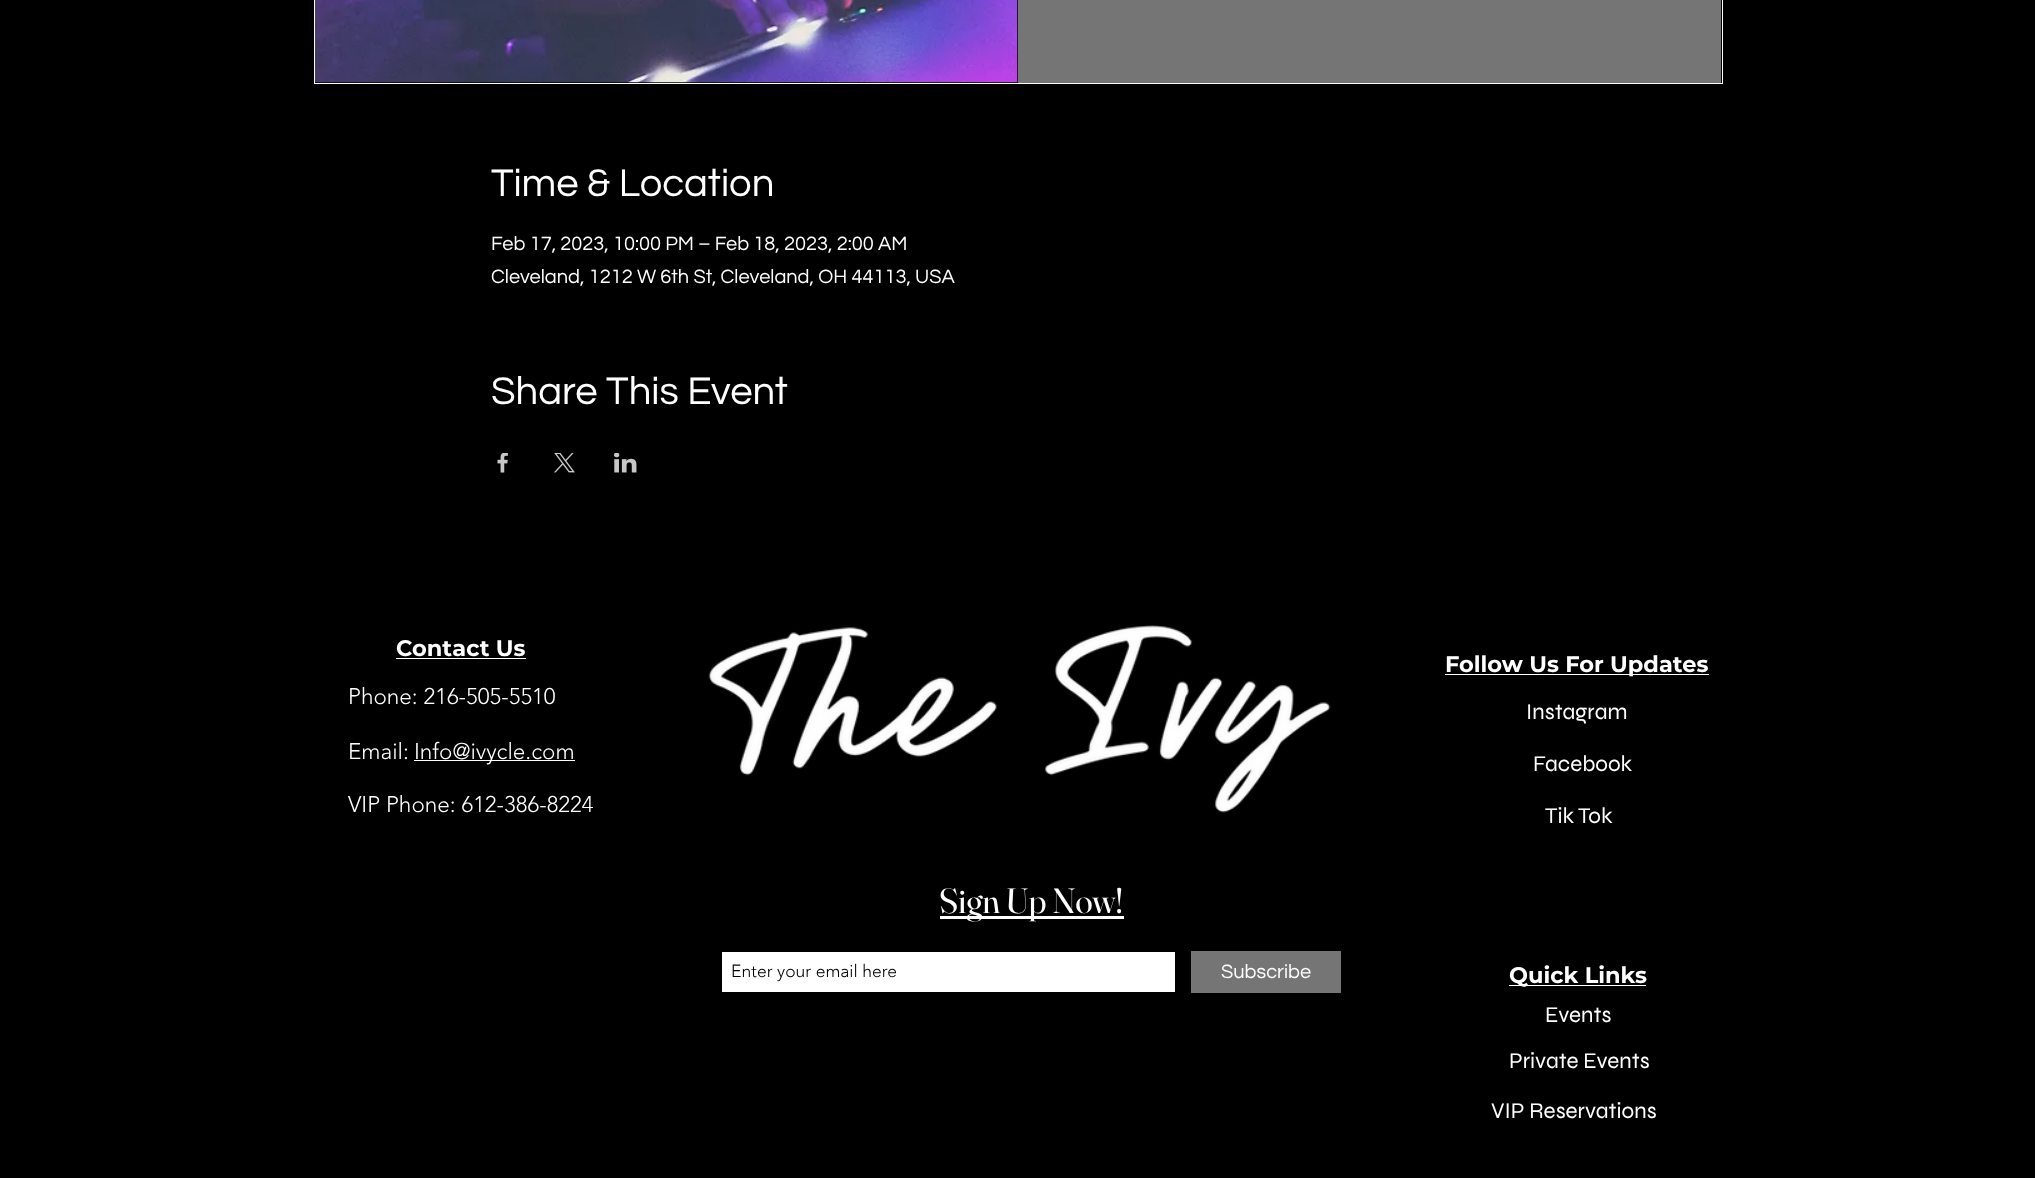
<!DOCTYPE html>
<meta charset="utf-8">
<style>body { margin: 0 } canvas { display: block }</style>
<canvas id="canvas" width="2035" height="1178"></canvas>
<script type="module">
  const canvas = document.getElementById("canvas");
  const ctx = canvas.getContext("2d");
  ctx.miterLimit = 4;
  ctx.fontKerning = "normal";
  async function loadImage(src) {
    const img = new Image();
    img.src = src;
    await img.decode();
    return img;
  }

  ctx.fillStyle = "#000000";
  ctx.fillRect(0, 0, 2035, 1178);
  ctx.strokeStyle = "#ffffff";
  ctx.strokeRect(314.5, -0.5, 1408, 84);
  ctx.drawImage(await loadImage("img1.png"), 315, 0, 703, 83);
  ctx.fillStyle = "#757575";
  ctx.fillRect(1018, 0, 703, 83);
  ctx.font = "40px Questrial";
  ctx.fillStyle = "#ffffff";
  ctx.fillText("Time & Location", 491, 196);
  ctx.font = "20px Questrial";
  ctx.fillText("Feb 17, 2023, 10:00 PM – Feb 18, 2023, 2:00 AM", 491, 250);
  ctx.fillText("Cleveland, 1212 W 6th St, Cleveland, OH 44113, USA", 491, 283);
  ctx.font = "40px Questrial";
  ctx.fillText("Share This Event", 491, 404);
  ctx.drawImage(await loadImage("img2.png"), 497, 453, 11, 20);
  ctx.drawImage(await loadImage("img3.png"), 554, 453, 21, 20);
  ctx.drawImage(await loadImage("img4.png"), 614, 453, 23, 20);
  ctx.font = "bold 22.5px Montserrat";
  ctx.fillText("Contact Us", 396, 656);
  ctx.fillRect(396, 658, 130, 1);
  ctx.drawImage(await loadImage("img5.png"), 708, 625, 623, 188);
  ctx.fillRect(1445, 674, 264, 1);
  ctx.fillText("Follow Us For Updates", 1445, 672);
  ctx.font = "300 22.5px 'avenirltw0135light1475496'";
  ctx.fillText("Phone: 216-505-5510", 348, 704);
  ctx.font = "22.5px Syne";
  ctx.fillText("Instagram", 1526, 719);
  ctx.font = "300 22.5px 'avenirltw0135light1475496'";
  ctx.fillText("Email:", 348, 759);
  ctx.fillRect(414, 760, 161, 1);
  ctx.fillText("Info@ivycle.com", 414, 759);
  ctx.font = "22.5px Syne";
  ctx.fillText("Facebook", 1533, 771);
  ctx.font = "300 22.5px 'avenirltw0135light1475496'";
  ctx.fillText("VIP Phone: 612-386-8224", 348, 812);
  ctx.font = "22.5px Syne";
  ctx.fillText("Tik Tok", 1545, 823);
  ctx.fillRect(940, 916, 184, 3);
  ctx.font = "35px Fraunces";
  ctx.fillText("Sign Up Now!", 939, 913);
  ctx.fillRect(722, 952, 453, 40);
  ctx.font = "300 17.5px 'avenirltw0135light1475496'";
  ctx.fillStyle = "#000000";
  ctx.fillText("Enter your email here", 731, 977);
  ctx.fillStyle = "#757575";
  ctx.fillRect(1191, 951, 150, 42);
  ctx.font = "20px Questrial";
  ctx.fillStyle = "#ffffff";
  ctx.fillText("Subscribe", 1221, 978);
  ctx.fillRect(1509, 985, 137, 1);
  ctx.font = "bold 22.5px Montserrat";
  ctx.fillText("Quick Links", 1509, 983);
  ctx.font = "22.5px Syne";
  ctx.fillText("Events", 1545, 1022);
  ctx.fillText("Private Events", 1509, 1068);
  ctx.fillText("VIP Reservations", 1491, 1118);
</script>
